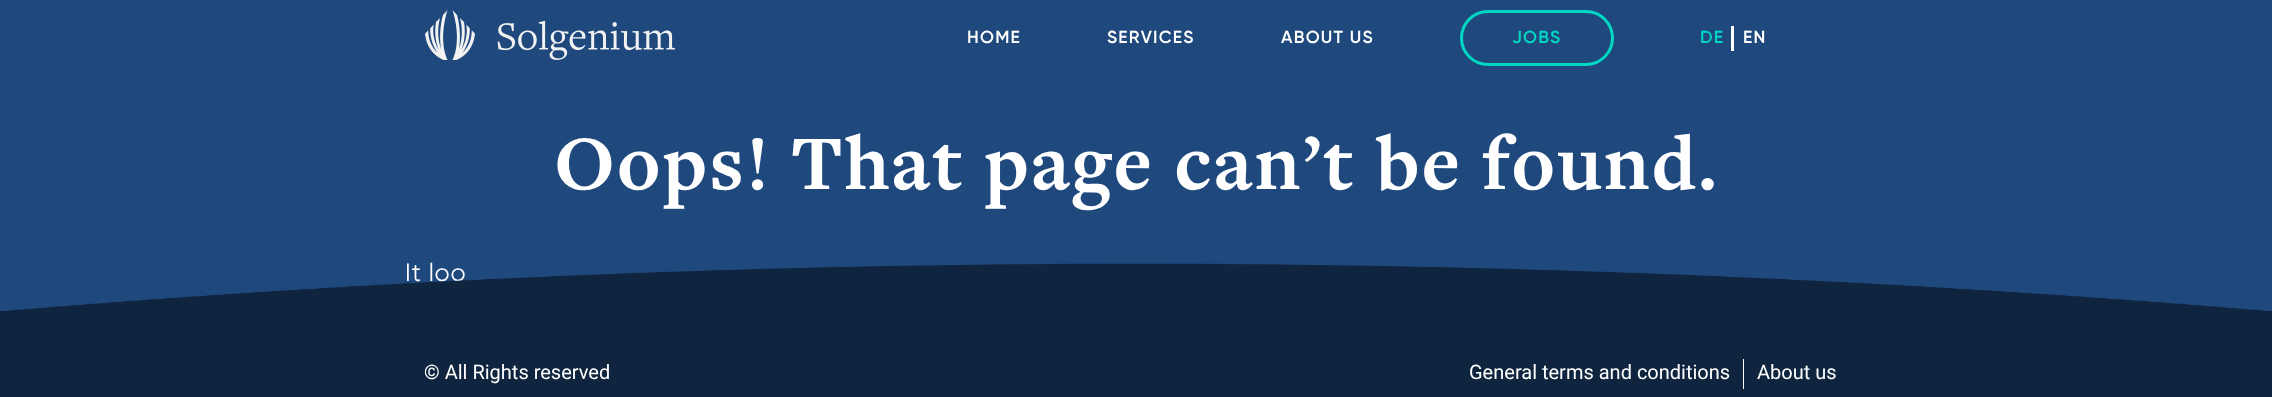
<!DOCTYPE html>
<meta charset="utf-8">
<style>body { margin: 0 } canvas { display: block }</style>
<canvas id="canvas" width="2272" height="397"></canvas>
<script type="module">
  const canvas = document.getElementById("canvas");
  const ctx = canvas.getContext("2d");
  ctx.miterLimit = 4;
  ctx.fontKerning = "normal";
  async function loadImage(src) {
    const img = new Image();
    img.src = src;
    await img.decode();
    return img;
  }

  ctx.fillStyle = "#1f497d";
  ctx.fillRect(0, 0, 2272, 397);
  ctx.drawImage(await loadImage("img1.png"), 425, 10, 250, 50);
  ctx.letterSpacing = "1.25px";
  ctx.font = "17.5px 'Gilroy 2'";
  ctx.fillStyle = "#ffffff";
  ctx.fillText("HOME", 967, 43);
  ctx.fillText("SERVICES", 1107, 43);
  ctx.fillText("ABOUT US", 1281, 43);
  ctx.beginPath();
  ctx.roundRect(1461.5, 11.5, 151, 53, 26.5);
  ctx.strokeStyle = "#01d8c3";
  ctx.lineWidth = 3;
  ctx.stroke();
  ctx.fillStyle = "#01d8c3";
  ctx.fillText("JOBS", 1512, 43);
  ctx.fillText("DE", 1700, 43);
  ctx.fillStyle = "#ffffff";
  ctx.fillRect(1731, 26, 3, 25);
  ctx.fillText("EN", 1743, 43);
  ctx.letterSpacing = "1.9px";
  ctx.font = "80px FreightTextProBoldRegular";
  ctx.fillText("Oops! That page can’t be found.", 554, 189);
  ctx.letterSpacing = "0.75px";
  ctx.font = "25px Gilroy";
  ctx.fillText("It loo", 405, 281);
  ctx.drawImage(await loadImage("img2.png"), 3, 263, 2267, 48);
  ctx.fillStyle = "#0f243e";
  ctx.fillRect(0, 311, 2272, 86);
  ctx.letterSpacing = "0px";
  ctx.font = "20px Roboto";
  ctx.fillStyle = "#ffffff";
  ctx.fillText("© All Rights reserved", 424, 379);
  ctx.fillRect(1743, 359, 1, 30);
  ctx.fillText("General terms and conditions", 1469, 379);
  ctx.fillText("About us", 1757, 379);
</script>
